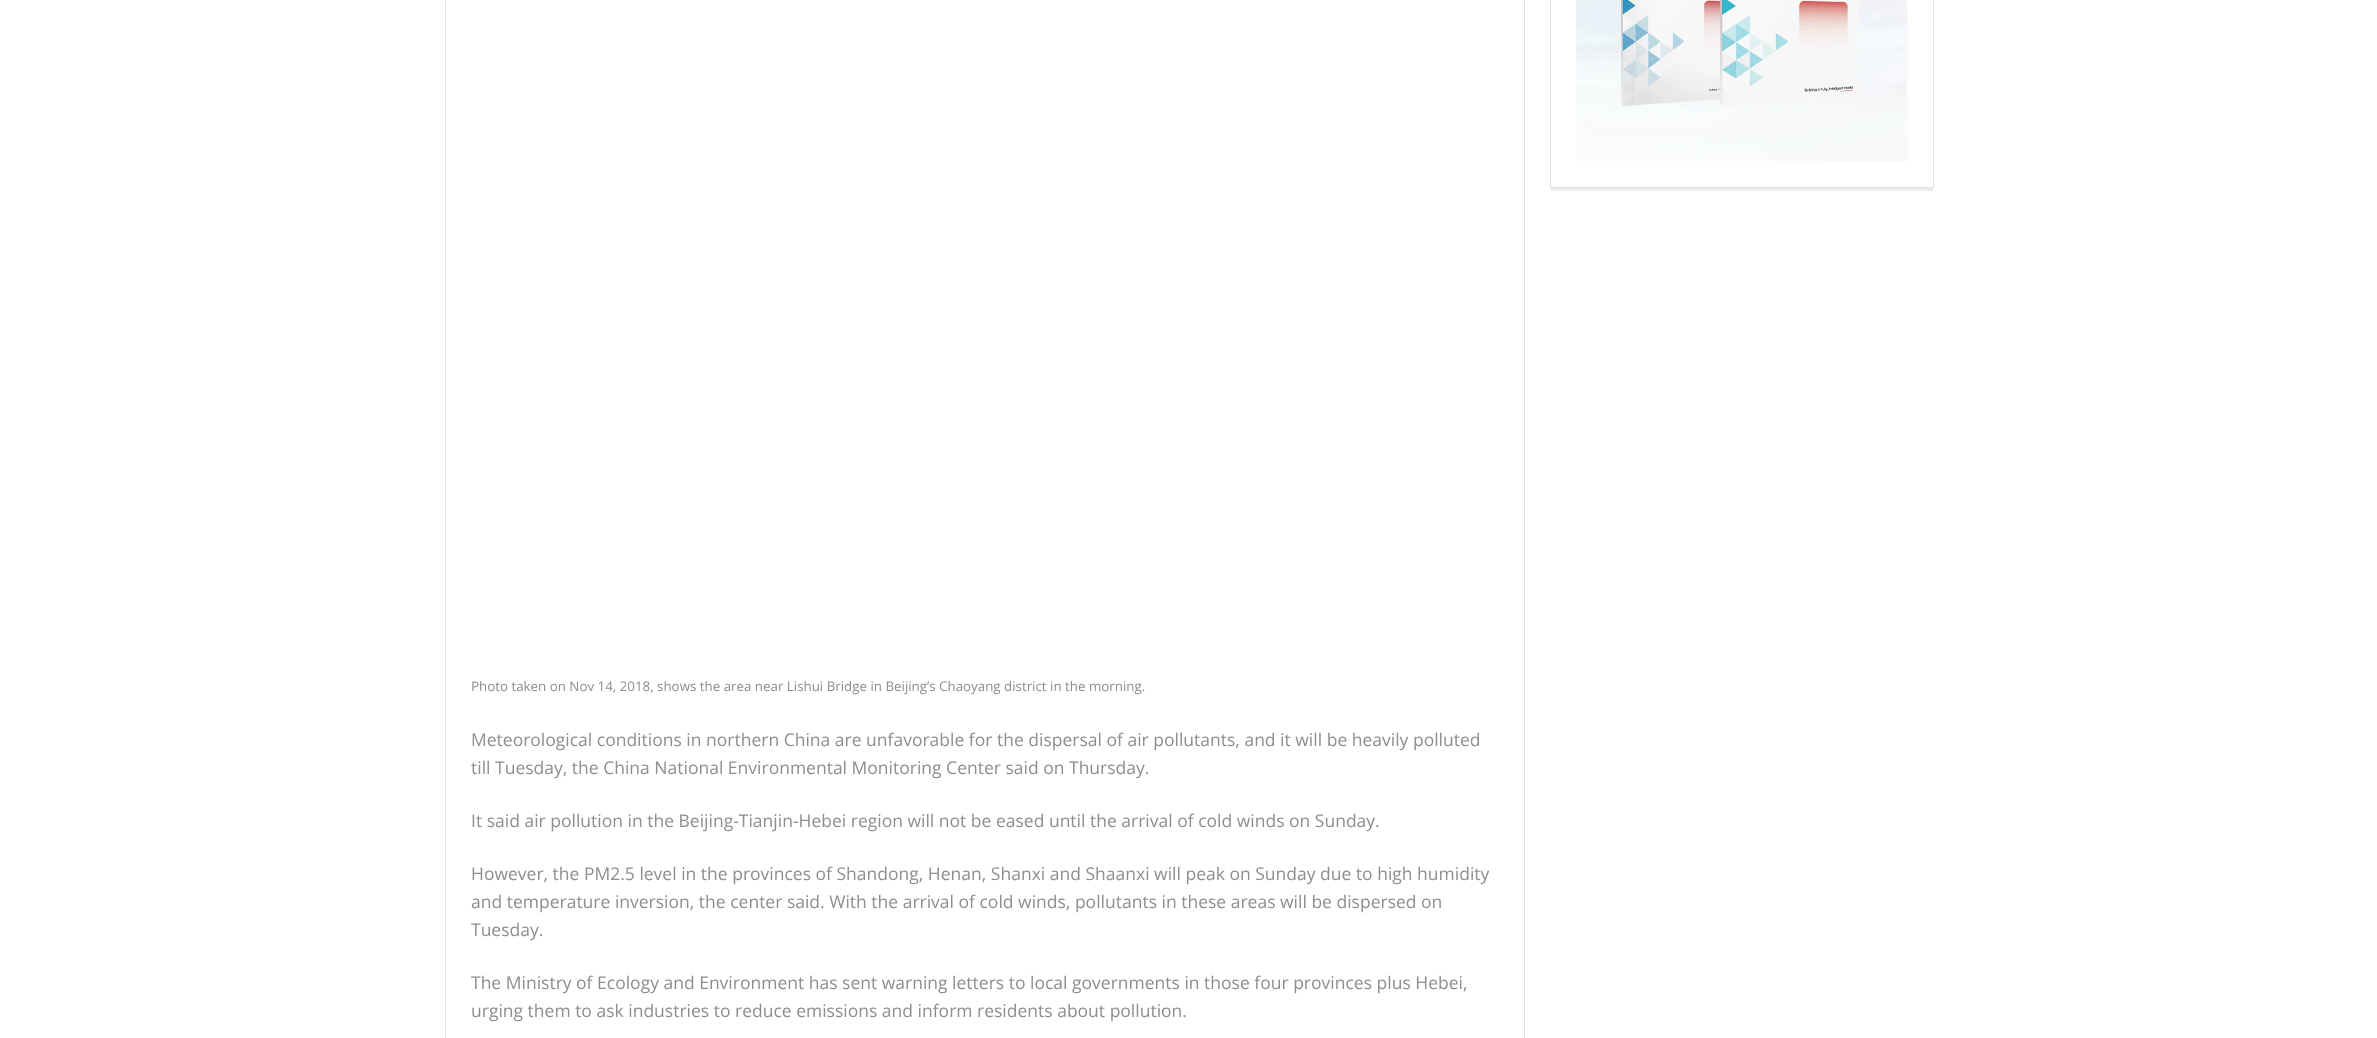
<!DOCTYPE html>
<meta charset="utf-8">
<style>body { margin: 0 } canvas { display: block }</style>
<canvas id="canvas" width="2377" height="1038"></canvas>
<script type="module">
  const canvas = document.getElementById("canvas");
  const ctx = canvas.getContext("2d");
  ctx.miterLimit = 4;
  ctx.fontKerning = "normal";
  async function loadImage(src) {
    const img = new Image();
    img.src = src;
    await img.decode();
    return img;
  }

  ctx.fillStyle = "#ffffff";
  ctx.fillRect(0, 0, 2377, 1038);
  ctx.strokeStyle = "#e0e0e0";
  ctx.strokeRect(1550.5, -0.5, 383, 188);
  ctx.drawImage(await loadImage("img1.png"), 1576, 0, 332, 161);
  ctx.fillStyle = "#ebebeb";
  ctx.fillRect(1551, 188, 382, 3);
  ctx.strokeRect(445.5, -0.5, 1079, 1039);
  ctx.font = "13.33px Open Sans";
  ctx.fillStyle = "#8e8e8e";
  ctx.fillText("Photo taken on Nov 14, 2018, shows the area near Lishui Bridge in Beijing’s Chaoyang district in the morning.", 471, 691);
  ctx.font = "17.5px Open Sans";
  ctx.fillText("Meteorological conditions in northern China are unfavorable for the dispersal of air pollutants, and it will be heavily polluted", 471, 746);
  ctx.fillText("till Tuesday, the China National Environmental Monitoring Center said on Thursday.", 471, 774);
  ctx.fillText("It said air pollution in the Beijing-Tianjin-Hebei region will not be eased until the arrival of cold winds on Sunday.", 471, 827);
  ctx.fillText("However, the PM2.5 level in the provinces of Shandong, Henan, Shanxi and Shaanxi will peak on Sunday due to high humidity", 471, 880);
  ctx.fillText("and temperature inversion, the center said. With the arrival of cold winds, pollutants in these areas will be dispersed on", 471, 908);
  ctx.fillText("Tuesday.", 471, 936);
  ctx.fillText("The Ministry of Ecology and Environment has sent warning letters to local governments in those four provinces plus Hebei,", 471, 989);
  ctx.fillText("urging them to ask industries to reduce emissions and inform residents about pollution.", 471, 1017);
</script>
